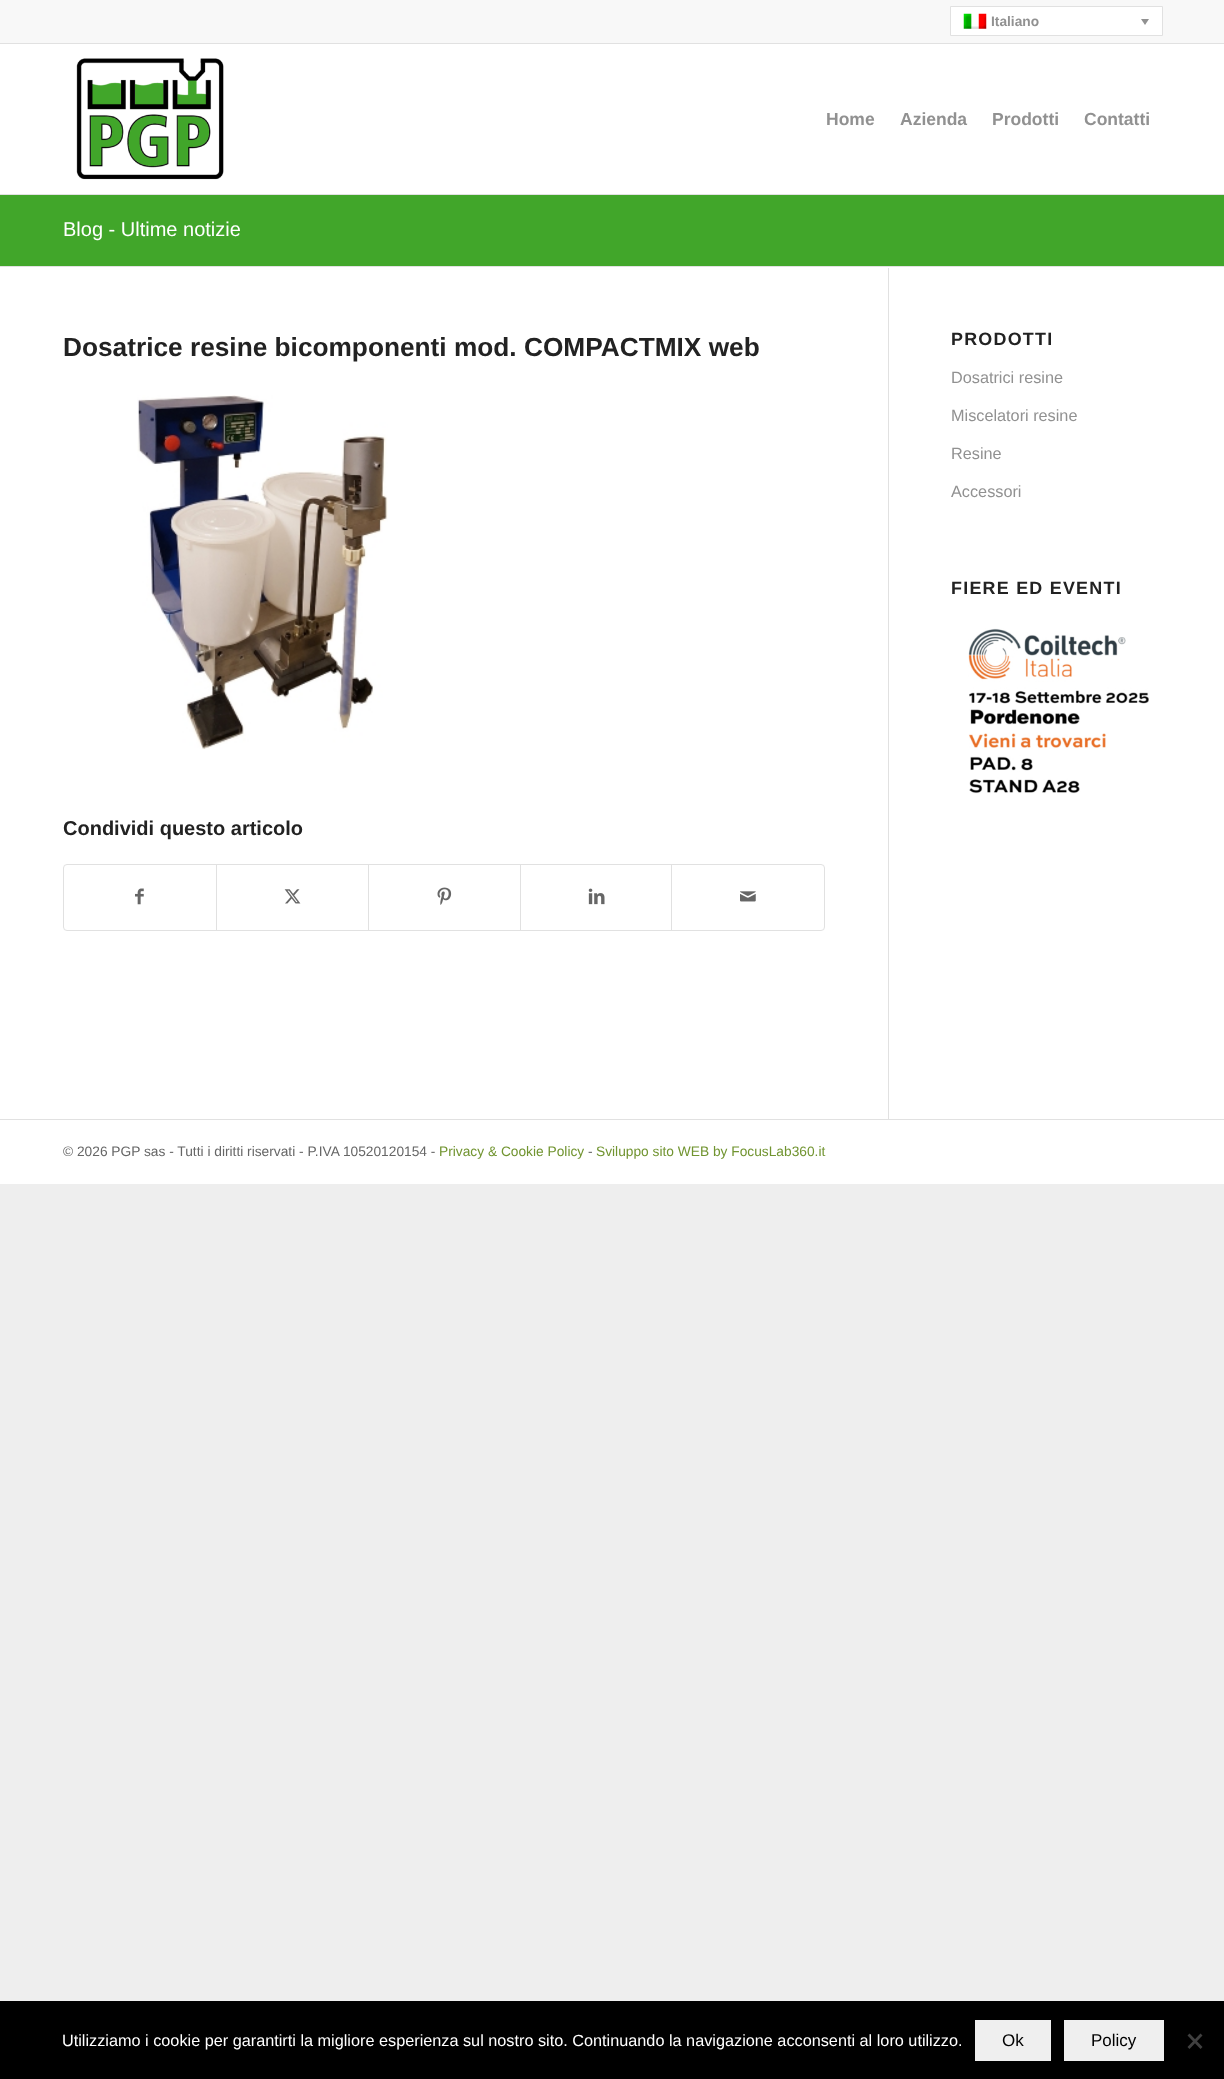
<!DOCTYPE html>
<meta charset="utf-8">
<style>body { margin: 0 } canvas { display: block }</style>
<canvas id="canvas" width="1224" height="2079"></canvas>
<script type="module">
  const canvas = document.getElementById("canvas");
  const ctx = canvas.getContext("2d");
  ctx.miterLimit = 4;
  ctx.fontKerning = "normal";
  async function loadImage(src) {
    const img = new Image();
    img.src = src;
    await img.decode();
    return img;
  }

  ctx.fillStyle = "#eeeeee";
  ctx.fillRect(0, 0, 1224, 2079);
  ctx.fillStyle = "#f8f8f8";
  ctx.fillRect(0, 0, 1224, 43);
  ctx.fillStyle = "#e1e1e1";
  ctx.fillRect(0, 43, 1224, 1);
  ctx.fillStyle = "#ffffff";
  ctx.beginPath();
  ctx.rect(950.5, 6.5, 212, 29);
  ctx.fill();
  ctx.strokeStyle = "#e1e1e1";
  ctx.stroke();
  ctx.drawImage(await loadImage("img1.png"), 963, 13, 24, 16);
  ctx.font = "bold 13.75px Liberation Sans";
  ctx.fillStyle = "#919191";
  ctx.fillText("Italiano", 991, 26);
  ctx.beginPath();
  ctx.moveTo(1141, 19);
  ctx.lineTo(1149, 19);
  ctx.lineTo(1145, 25);
  ctx.closePath();
  ctx.fill();
  ctx.fillStyle = "#ffffff";
  ctx.fillRect(0, 44, 1224, 150);
  ctx.fillStyle = "#e1e1e1";
  ctx.fillRect(0, 194, 1224, 1);
  ctx.drawImage(await loadImage("img2.png"), 76, 58, 148, 122);
  ctx.font = "bold 17.5px Liberation Sans";
  ctx.fillStyle = "#919191";
  ctx.fillText("Home", 826, 125);
  ctx.fillText("Azienda", 900, 125);
  ctx.fillText("Prodotti", 992, 125);
  ctx.fillText("Contatti", 1084, 125);
  ctx.fillStyle = "#ffffff";
  ctx.fillRect(0, 267, 1224, 917);
  ctx.fillStyle = "#41a62a";
  ctx.fillRect(0, 195, 1224, 71);
  ctx.font = "20px Liberation Sans";
  ctx.fillStyle = "#ffffff";
  ctx.fillText("Blog - Ultime notizie", 63, 236);
  ctx.fillStyle = "#e1e1e1";
  ctx.fillRect(0, 266, 1224, 1);
  ctx.fillRect(888, 268, 1, 851);
  ctx.font = "bold 26.25px Liberation Sans";
  ctx.fillStyle = "#222222";
  ctx.fillText("Dosatrice resine bicomponenti mod. COMPACTMIX web", 63, 356);
  ctx.drawImage(await loadImage("img3.png"), 137, 395, 251, 355);
  ctx.font = "bold 20px Liberation Sans";
  ctx.fillText("Condividi questo articolo", 63, 835);
  ctx.beginPath();
  ctx.roundRect(63.5, 864.5, 761, 66, 3.5);
  ctx.stroke();
  ctx.drawImage(await loadImage("img4.png"), 135, 888, 9, 17);
  ctx.fillStyle = "#e1e1e1";
  ctx.fillRect(216, 865, 1, 65);
  ctx.drawImage(await loadImage("img5.png"), 284, 889, 17, 15);
  ctx.fillRect(368, 865, 1, 65);
  ctx.drawImage(await loadImage("img6.png"), 437, 887, 15, 18);
  ctx.fillRect(520, 865, 1, 65);
  ctx.drawImage(await loadImage("img7.png"), 588, 888, 17, 17);
  ctx.fillRect(671, 865, 1, 65);
  ctx.drawImage(await loadImage("img8.png"), 740, 891, 16, 11);
  ctx.letterSpacing = "1.25px";
  ctx.font = "bold 17.9px Liberation Sans";
  ctx.fillStyle = "#222222";
  ctx.fillText("PRODOTTI", 951, 345);
  ctx.letterSpacing = "0px";
  ctx.font = "16.25px Liberation Sans";
  ctx.fillStyle = "#919191";
  ctx.fillText("Dosatrici resine", 951, 383);
  ctx.fillText("Miscelatori resine", 951, 421);
  ctx.fillText("Resine", 951, 459);
  ctx.fillText("Accessori", 951, 497);
  ctx.letterSpacing = "1.25px";
  ctx.font = "bold 17.9px Liberation Sans";
  ctx.fillStyle = "#222222";
  ctx.fillText("FIERE ED EVENTI", 951, 594);
  ctx.drawImage(await loadImage("img9.png"), 968, 628, 181, 166);
  ctx.fillStyle = "#e1e1e1";
  ctx.fillRect(0, 1119, 1224, 1);
  ctx.letterSpacing = "0px";
  ctx.font = "13.75px Liberation Sans";
  ctx.fillStyle = "#666666";
  ctx.fillText("© 2026 PGP sas - Tutti i diritti riservati - P.IVA 10520120154 -", 63, 1156);
  ctx.fillStyle = "#719430";
  ctx.fillText("Privacy & Cookie Policy", 439, 1156);
  ctx.fillStyle = "#666666";
  ctx.fillText("-", 588, 1156);
  ctx.fillStyle = "#719430";
  ctx.fillText("Sviluppo sito WEB by FocusLab360.it", 596, 1156);
  ctx.fillStyle = "#000000";
  ctx.fillRect(0, 2001, 1224, 78);
  ctx.font = "16.25px Liberation Sans";
  ctx.fillStyle = "#ffffff";
  ctx.fillText("Utilizziamo i cookie per garantirti la migliore esperienza sul nostro sito. Continuando la navigazione acconsenti al loro utilizzo.", 62, 2046);
  ctx.fillStyle = "#efefef";
  ctx.fillRect(975, 2020, 76, 41);
  ctx.font = "17px Liberation Sans";
  ctx.fillStyle = "#000000";
  ctx.fillText("Ok", 1002, 2046);
  ctx.fillStyle = "#efefef";
  ctx.fillRect(1064, 2020, 100, 41);
  ctx.fillStyle = "#000000";
  ctx.fillText("Policy", 1091, 2046);
  ctx.fillStyle = "#404040";
  ctx.beginPath();
  ctx.moveTo(1200.5, 2033.5);
  ctx.lineTo(1202.5, 2035.5);
  ctx.lineTo(1189.5, 2049);
  ctx.lineTo(1187.5, 2047);
  ctx.closePath();
  ctx.fill();
  ctx.beginPath();
  ctx.moveTo(1187.5, 2035.5);
  ctx.lineTo(1189.5, 2033.5);
  ctx.lineTo(1202.5, 2047);
  ctx.lineTo(1200.5, 2049);
  ctx.closePath();
  ctx.fill();
</script>
